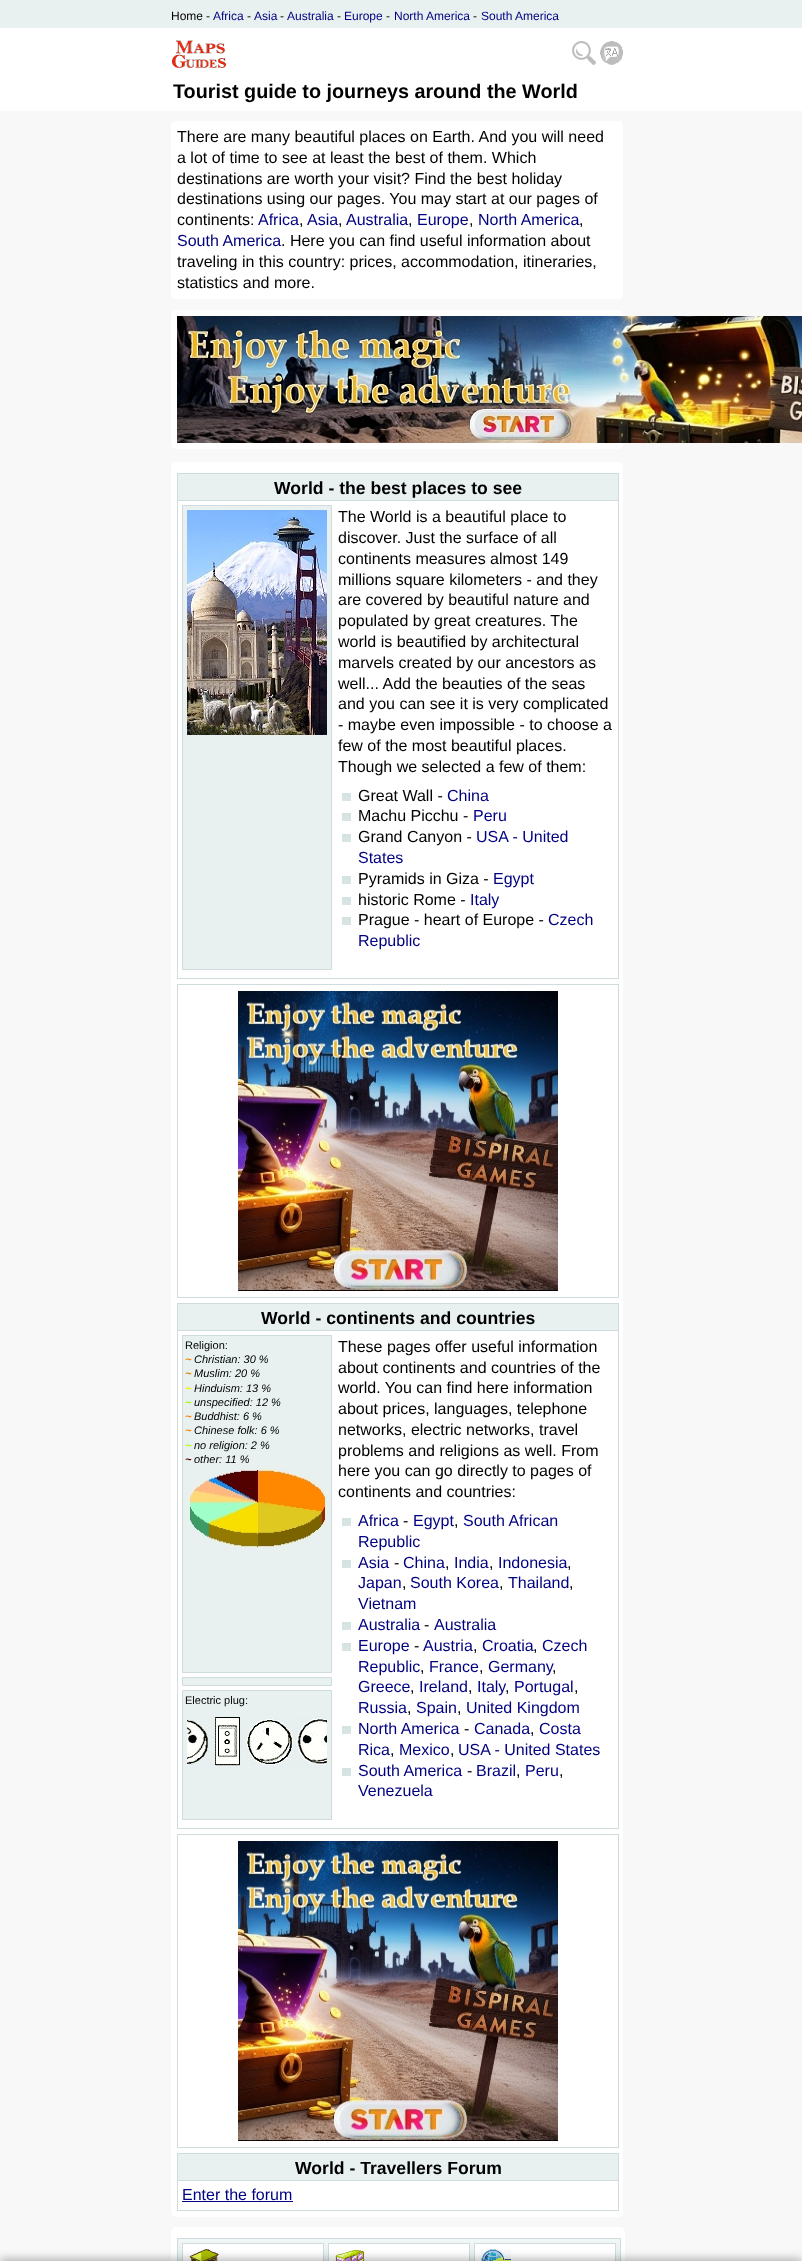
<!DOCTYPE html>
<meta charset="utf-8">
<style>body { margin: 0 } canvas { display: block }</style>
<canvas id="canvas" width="802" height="2261"></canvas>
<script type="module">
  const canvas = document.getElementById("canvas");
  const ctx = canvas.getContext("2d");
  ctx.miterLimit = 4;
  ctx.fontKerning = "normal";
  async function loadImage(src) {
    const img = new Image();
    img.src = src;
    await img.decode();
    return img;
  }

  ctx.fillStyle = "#f8f8f8";
  ctx.fillRect(0, 0, 802, 2261);
  ctx.fillStyle = "#e8f0f0";
  ctx.fillRect(0, 0, 802, 28);
  ctx.font = "12px Liberation Sans";
  ctx.fillStyle = "#000000";
  ctx.fillText("Home", 171, 20);
  ctx.fillText("-", 206, 20);
  ctx.fillStyle = "#000080";
  ctx.fillText("Africa", 213, 20);
  ctx.fillStyle = "#000000";
  ctx.fillText("-", 247, 20);
  ctx.fillStyle = "#000080";
  ctx.fillText("Asia", 254, 20);
  ctx.fillStyle = "#000000";
  ctx.fillText("-", 280, 20);
  ctx.fillStyle = "#000080";
  ctx.fillText("Australia", 287, 20);
  ctx.fillStyle = "#000000";
  ctx.fillText("-", 337, 20);
  ctx.fillStyle = "#000080";
  ctx.fillText("Europe", 344, 20);
  ctx.fillStyle = "#000000";
  ctx.fillText("-", 386, 20);
  ctx.fillStyle = "#000080";
  ctx.fillText("North America", 394, 20);
  ctx.fillStyle = "#000000";
  ctx.fillText("-", 473, 20);
  ctx.fillStyle = "#000080";
  ctx.fillText("South America", 481, 20);
  ctx.fillStyle = "#ffffff";
  ctx.fillRect(0, 28, 802, 83);
  ctx.drawImage(await loadImage("img1.png"), 172, 40, 55, 28);
  ctx.drawImage(await loadImage("img2.png"), 572, 41, 51, 24);
  ctx.font = "bold 19.8px Liberation Sans";
  ctx.fillStyle = "#000000";
  ctx.fillText("Tourist guide to journeys around the World", 173, 98);
  ctx.fillStyle = "#ffffff";
  ctx.beginPath();
  ctx.roundRect(171, 121, 452, 178, 5);
  ctx.fill();
  ctx.font = "16px Liberation Sans";
  ctx.fillStyle = "#000000";
  ctx.fillText("There are many beautiful places on Earth. And you will need", 177, 142);
  ctx.fillText("a lot of time to see at least the best of them. Which", 177, 163);
  ctx.fillText("destinations are worth your visit? Find the best holiday", 177, 184);
  ctx.fillText("destinations using our pages. You may start at our pages of", 177, 204);
  ctx.fillText("continents:", 177, 225);
  ctx.fillStyle = "#000080";
  ctx.fillText("Africa", 258, 225);
  ctx.fillStyle = "#000000";
  ctx.fillText(",", 299, 225);
  ctx.fillStyle = "#000080";
  ctx.fillText("Asia", 307, 225);
  ctx.fillStyle = "#000000";
  ctx.fillText(",", 338, 225);
  ctx.fillStyle = "#000080";
  ctx.fillText("Australia", 346, 225);
  ctx.fillStyle = "#000000";
  ctx.fillText(",", 408, 225);
  ctx.fillStyle = "#000080";
  ctx.fillText("Europe", 417, 225);
  ctx.fillStyle = "#000000";
  ctx.fillText(",", 469, 225);
  ctx.fillStyle = "#000080";
  ctx.fillText("North America", 478, 225);
  ctx.fillStyle = "#000000";
  ctx.fillText(",", 579, 225);
  ctx.fillStyle = "#000080";
  ctx.fillText("South America", 177, 246);
  ctx.fillStyle = "#000000";
  ctx.fillText(". Here you can find useful information about", 281, 246);
  ctx.fillText("traveling in this country: prices, accommodation, itineraries,", 177, 267);
  ctx.fillText("statistics and more.", 177, 288);
  ctx.fillStyle = "#ffffff";
  ctx.beginPath();
  ctx.roundRect(171, 310, 452, 139, 5);
  ctx.fill();
  ctx.drawImage(await loadImage("img3.png"), 177, 316, 625, 127);
  ctx.beginPath();
  ctx.roundRect(171, 462, 452, 1755, 5);
  ctx.fill();
  ctx.strokeStyle = "#cfdbdd";
  ctx.strokeRect(177.5, 473.5, 441, 505);
  ctx.fillStyle = "#e8f0f0";
  ctx.fillRect(178, 474, 440, 26);
  ctx.fillStyle = "#cfdbdd";
  ctx.fillRect(178, 500, 440, 1);
  ctx.font = "bold 17.6px Liberation Sans";
  ctx.fillStyle = "#000000";
  ctx.fillText("World - the best places to see", 274, 494);
  ctx.fillStyle = "#e8f0f0";
  ctx.beginPath();
  ctx.rect(182.5, 505.5, 149, 464);
  ctx.fill();
  ctx.stroke();
  ctx.drawImage(await loadImage("img4.png"), 187, 510, 140, 225);
  ctx.font = "16px Liberation Sans";
  ctx.fillStyle = "#000000";
  ctx.fillText("The World is a beautiful place to", 338, 522);
  ctx.fillText("discover. Just the surface of all", 338, 543);
  ctx.fillText("continents measures almost 149", 338, 564);
  ctx.fillText("millions square kilometers - and they", 338, 585);
  ctx.fillText("are covered by beautiful nature and", 338, 605);
  ctx.fillText("populated by great creatures. The", 338, 626);
  ctx.fillText("world is beautified by architectural", 338, 647);
  ctx.fillText("marvels created by our ancestors as", 338, 668);
  ctx.fillText("well... Add the beauties of the seas", 338, 689);
  ctx.fillText("and you can see it is very complicated", 338, 709);
  ctx.fillText("- maybe even impossible - to choose a", 338, 730);
  ctx.fillText("few of the most beautiful places.", 338, 751);
  ctx.fillText("Though we selected a few of them:", 338, 772);
  ctx.drawImage(await loadImage("img5.png"), 342, 793, 9, 8);
  ctx.fillText("Great Wall -", 358, 801);
  ctx.fillStyle = "#000080";
  ctx.fillText("China", 447, 801);
  ctx.drawImage(await loadImage("img5.png"), 342, 813, 9, 8);
  ctx.fillStyle = "#000000";
  ctx.fillText("Machu Picchu -", 358, 821);
  ctx.fillStyle = "#000080";
  ctx.fillText("Peru", 473, 821);
  ctx.drawImage(await loadImage("img5.png"), 342, 834, 9, 8);
  ctx.fillStyle = "#000000";
  ctx.fillText("Grand Canyon -", 358, 842);
  ctx.fillStyle = "#000080";
  ctx.fillText("USA - United", 476, 842);
  ctx.fillText("States", 358, 863);
  ctx.drawImage(await loadImage("img5.png"), 342, 876, 9, 8);
  ctx.fillStyle = "#000000";
  ctx.fillText("Pyramids in Giza -", 358, 884);
  ctx.fillStyle = "#000080";
  ctx.fillText("Egypt", 493, 884);
  ctx.drawImage(await loadImage("img5.png"), 342, 897, 9, 8);
  ctx.fillStyle = "#000000";
  ctx.fillText("historic Rome -", 358, 905);
  ctx.fillStyle = "#000080";
  ctx.fillText("Italy", 470, 905);
  ctx.drawImage(await loadImage("img5.png"), 342, 917, 9, 8);
  ctx.fillStyle = "#000000";
  ctx.fillText("Prague - heart of Europe -", 358, 925);
  ctx.fillStyle = "#000080";
  ctx.fillText("Czech", 548, 925);
  ctx.fillText("Republic", 358, 946);
  ctx.strokeRect(177.5, 984.5, 441, 313);
  ctx.drawImage(await loadImage("img6.png"), 238, 991, 320, 300);
  ctx.strokeRect(177.5, 1303.5, 441, 525);
  ctx.fillStyle = "#e8f0f0";
  ctx.fillRect(178, 1304, 440, 26);
  ctx.fillStyle = "#cfdbdd";
  ctx.fillRect(178, 1330, 440, 1);
  ctx.font = "bold 17.6px Liberation Sans";
  ctx.fillStyle = "#000000";
  ctx.fillText("World - continents and countries", 261, 1324);
  ctx.fillStyle = "#e8f0f0";
  ctx.beginPath();
  ctx.rect(182.5, 1335.5, 149, 337);
  ctx.fill();
  ctx.stroke();
  ctx.font = "11px Liberation Sans";
  ctx.fillStyle = "#000000";
  ctx.fillText("Religion:", 185, 1349);
  ctx.font = "italic bold 11px Liberation Sans";
  ctx.fillStyle = "#ff8000";
  ctx.fillText("~", 185, 1363);
  ctx.font = "italic 11px Liberation Sans";
  ctx.fillStyle = "#000000";
  ctx.fillText("Christian: 30 %", 194, 1363);
  ctx.font = "italic bold 11px Liberation Sans";
  ctx.fillStyle = "#df8200";
  ctx.fillText("~", 185, 1377);
  ctx.font = "italic 11px Liberation Sans";
  ctx.fillStyle = "#000000";
  ctx.fillText("Muslim: 20 %", 194, 1377);
  ctx.font = "italic bold 11px Liberation Sans";
  ctx.fillStyle = "#f8f000";
  ctx.fillText("~", 185, 1392);
  ctx.font = "italic 11px Liberation Sans";
  ctx.fillStyle = "#000000";
  ctx.fillText("Hinduism: 13 %", 194, 1392);
  ctx.font = "italic bold 11px Liberation Sans";
  ctx.fillStyle = "#a0fc00";
  ctx.fillText("~", 185, 1406);
  ctx.font = "italic 11px Liberation Sans";
  ctx.fillStyle = "#000000";
  ctx.fillText("unspecified: 12 %", 194, 1406);
  ctx.font = "italic bold 11px Liberation Sans";
  ctx.fillStyle = "#ff8700";
  ctx.fillText("~", 185, 1420);
  ctx.font = "italic 11px Liberation Sans";
  ctx.fillStyle = "#000000";
  ctx.fillText("Buddhist: 6 %", 194, 1420);
  ctx.font = "italic bold 11px Liberation Sans";
  ctx.fillStyle = "#ff8700";
  ctx.fillText("~", 185, 1434);
  ctx.font = "italic 11px Liberation Sans";
  ctx.fillStyle = "#000000";
  ctx.fillText("Chinese folk: 6 %", 194, 1434);
  ctx.font = "italic bold 11px Liberation Sans";
  ctx.fillStyle = "#b8fe00";
  ctx.fillText("~", 185, 1449);
  ctx.font = "italic 11px Liberation Sans";
  ctx.fillStyle = "#000000";
  ctx.fillText("no religion: 2 %", 194, 1449);
  ctx.font = "italic bold 11px Liberation Sans";
  ctx.fillStyle = "#520000";
  ctx.fillText("~", 185, 1463);
  ctx.font = "italic 11px Liberation Sans";
  ctx.fillStyle = "#000000";
  ctx.fillText("other: 11 %", 194, 1463);
  ctx.drawImage(await loadImage("img7.png"), 188, 1469, 138, 79);
  ctx.font = "16px Liberation Sans";
  ctx.fillText("These pages offer useful information", 338, 1352);
  ctx.fillText("about continents and countries of the", 338, 1373);
  ctx.fillText("world. You can find here information", 338, 1393);
  ctx.fillText("about prices, languages, telephone", 338, 1414);
  ctx.fillText("networks, electric networks, travel", 338, 1435);
  ctx.fillText("problems and religions as well. From", 338, 1456);
  ctx.fillText("here you can go directly to pages of", 338, 1476);
  ctx.fillText("continents and countries:", 338, 1497);
  ctx.drawImage(await loadImage("img5.png"), 342, 1518, 9, 8);
  ctx.fillStyle = "#000080";
  ctx.fillText("Africa", 358, 1526);
  ctx.fillStyle = "#000000";
  ctx.fillText("-", 403, 1526);
  ctx.fillStyle = "#000080";
  ctx.fillText("Egypt", 413, 1526);
  ctx.fillText("South African", 463, 1526);
  ctx.fillStyle = "#000000";
  ctx.fillText(",", 454, 1526);
  ctx.fillStyle = "#000080";
  ctx.fillText("Republic", 358, 1547);
  ctx.drawImage(await loadImage("img5.png"), 342, 1560, 9, 8);
  ctx.fillText("Asia", 358, 1568);
  ctx.fillStyle = "#000000";
  ctx.fillText("-", 394, 1568);
  ctx.fillStyle = "#000080";
  ctx.fillText("China", 403, 1568);
  ctx.fillText("India", 454, 1568);
  ctx.fillText("Indonesia", 498, 1568);
  ctx.fillStyle = "#000000";
  ctx.fillText(",", 445, 1568);
  ctx.fillText(",", 489, 1568);
  ctx.fillText(",", 567, 1568);
  ctx.fillStyle = "#000080";
  ctx.fillText("Japan", 358, 1588);
  ctx.fillStyle = "#000000";
  ctx.fillText(",", 402, 1588);
  ctx.fillStyle = "#000080";
  ctx.fillText("South Korea", 410, 1588);
  ctx.fillStyle = "#000000";
  ctx.fillText(",", 499, 1588);
  ctx.fillStyle = "#000080";
  ctx.fillText("Thailand", 508, 1588);
  ctx.fillStyle = "#000000";
  ctx.fillText(",", 569, 1588);
  ctx.fillStyle = "#000080";
  ctx.fillText("Vietnam", 358, 1609);
  ctx.drawImage(await loadImage("img5.png"), 342, 1622, 9, 8);
  ctx.fillText("Australia", 358, 1630);
  ctx.fillStyle = "#000000";
  ctx.fillText("-", 424, 1630);
  ctx.fillStyle = "#000080";
  ctx.fillText("Australia", 434, 1630);
  ctx.drawImage(await loadImage("img5.png"), 342, 1643, 9, 8);
  ctx.fillText("Europe", 358, 1651);
  ctx.fillStyle = "#000000";
  ctx.fillText("-", 414, 1651);
  ctx.fillStyle = "#000080";
  ctx.fillText("Austria", 423, 1651);
  ctx.fillText("Croatia", 482, 1651);
  ctx.fillText("Czech", 542, 1651);
  ctx.fillStyle = "#000000";
  ctx.fillText(",", 473, 1651);
  ctx.fillText(",", 533, 1651);
  ctx.fillStyle = "#000080";
  ctx.fillText("Republic", 358, 1672);
  ctx.fillStyle = "#000000";
  ctx.fillText(",", 420, 1672);
  ctx.fillStyle = "#000080";
  ctx.fillText("France", 429, 1672);
  ctx.fillStyle = "#000000";
  ctx.fillText(",", 479, 1672);
  ctx.fillStyle = "#000080";
  ctx.fillText("Germany", 488, 1672);
  ctx.fillStyle = "#000000";
  ctx.fillText(",", 552, 1672);
  ctx.fillStyle = "#000080";
  ctx.fillText("Greece", 358, 1692);
  ctx.fillStyle = "#000000";
  ctx.fillText(",", 410, 1692);
  ctx.fillStyle = "#000080";
  ctx.fillText("Ireland", 419, 1692);
  ctx.fillStyle = "#000000";
  ctx.fillText(",", 468, 1692);
  ctx.fillStyle = "#000080";
  ctx.fillText("Italy", 477, 1692);
  ctx.fillStyle = "#000000";
  ctx.fillText(",", 505, 1692);
  ctx.fillStyle = "#000080";
  ctx.fillText("Portugal", 514, 1692);
  ctx.fillStyle = "#000000";
  ctx.fillText(",", 574, 1692);
  ctx.fillStyle = "#000080";
  ctx.fillText("Russia", 358, 1713);
  ctx.fillStyle = "#000000";
  ctx.fillText(",", 407, 1713);
  ctx.fillStyle = "#000080";
  ctx.fillText("Spain", 416, 1713);
  ctx.fillStyle = "#000000";
  ctx.fillText(",", 457, 1713);
  ctx.fillStyle = "#000080";
  ctx.fillText("United Kingdom", 466, 1713);
  ctx.drawImage(await loadImage("img5.png"), 342, 1726, 9, 8);
  ctx.fillText("North America", 358, 1734);
  ctx.fillStyle = "#000000";
  ctx.fillText("-", 464, 1734);
  ctx.fillStyle = "#000080";
  ctx.fillText("Canada", 474, 1734);
  ctx.fillText("Costa", 539, 1734);
  ctx.fillStyle = "#000000";
  ctx.fillText(",", 530, 1734);
  ctx.fillStyle = "#000080";
  ctx.fillText("Rica", 358, 1755);
  ctx.fillStyle = "#000000";
  ctx.fillText(",", 390, 1755);
  ctx.fillStyle = "#000080";
  ctx.fillText("Mexico", 399, 1755);
  ctx.fillStyle = "#000000";
  ctx.fillText(",", 450, 1755);
  ctx.fillStyle = "#000080";
  ctx.fillText("USA - United States", 458, 1755);
  ctx.drawImage(await loadImage("img5.png"), 342, 1768, 9, 8);
  ctx.fillText("South America", 358, 1776);
  ctx.fillStyle = "#000000";
  ctx.fillText("-", 467, 1776);
  ctx.fillStyle = "#000080";
  ctx.fillText("Brazil", 476, 1776);
  ctx.fillText("Peru", 525, 1776);
  ctx.fillStyle = "#000000";
  ctx.fillText(",", 516, 1776);
  ctx.fillText(",", 559, 1776);
  ctx.fillStyle = "#000080";
  ctx.fillText("Venezuela", 358, 1796);
  ctx.fillStyle = "#e8f0f0";
  ctx.beginPath();
  ctx.rect(182.5, 1677.5, 149, 8);
  ctx.fill();
  ctx.stroke();
  ctx.beginPath();
  ctx.rect(182.5, 1690.5, 149, 129);
  ctx.fill();
  ctx.stroke();
  ctx.font = "11px Liberation Sans";
  ctx.fillStyle = "#000000";
  ctx.fillText("Electric plug:", 185, 1704);
  ctx.drawImage(await loadImage("img8.png"), 187, 1717, 140, 52);
  ctx.strokeRect(177.5, 1834.5, 441, 313);
  ctx.drawImage(await loadImage("img6.png"), 238, 1841, 320, 300);
  ctx.strokeRect(177.5, 2153.5, 441, 57);
  ctx.fillStyle = "#e8f0f0";
  ctx.fillRect(178, 2154, 440, 26);
  ctx.fillStyle = "#cfdbdd";
  ctx.fillRect(178, 2180, 440, 1);
  ctx.font = "bold 17.6px Liberation Sans";
  ctx.fillStyle = "#000000";
  ctx.fillText("World - Travellers Forum", 295, 2174);
  ctx.font = "16px Liberation Sans";
  ctx.fillStyle = "#000080";
  ctx.fillText("Enter the forum", 182, 2200);
  ctx.fillRect(182, 2201, 111, 1);
  ctx.fillStyle = "#ffffff";
  ctx.beginPath();
  ctx.roundRect(171, 2227, 454, 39, 5);
  ctx.fill();
  ctx.drawImage(await loadImage("img9.png"), 178, 2239, 442, 22);
  ctx.strokeRect(177.5, 2238.5, 443, 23);
  ctx.beginPath();
  ctx.rect(182.5, 2243.5, 141, 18);
  ctx.fill();
  ctx.stroke();
  ctx.drawImage(await loadImage("img10.png"), 189, 2249, 30, 12);
  ctx.beginPath();
  ctx.rect(328.5, 2243.5, 141, 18);
  ctx.fill();
  ctx.stroke();
  ctx.drawImage(await loadImage("img11.png"), 335, 2250, 30, 11);
  ctx.beginPath();
  ctx.rect(474.5, 2243.5, 141, 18);
  ctx.fill();
  ctx.stroke();
  ctx.drawImage(await loadImage("img12.png"), 481, 2249, 30, 12);
  ctx.fillStyle = "rgba(0, 0, 0, 0.3)";
  ctx.filter = "blur(5px)";
  ctx.beginPath();
  ctx.rect(0, 2259, 802, 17);
  ctx.fill();
  ctx.filter = "none";
</script>
